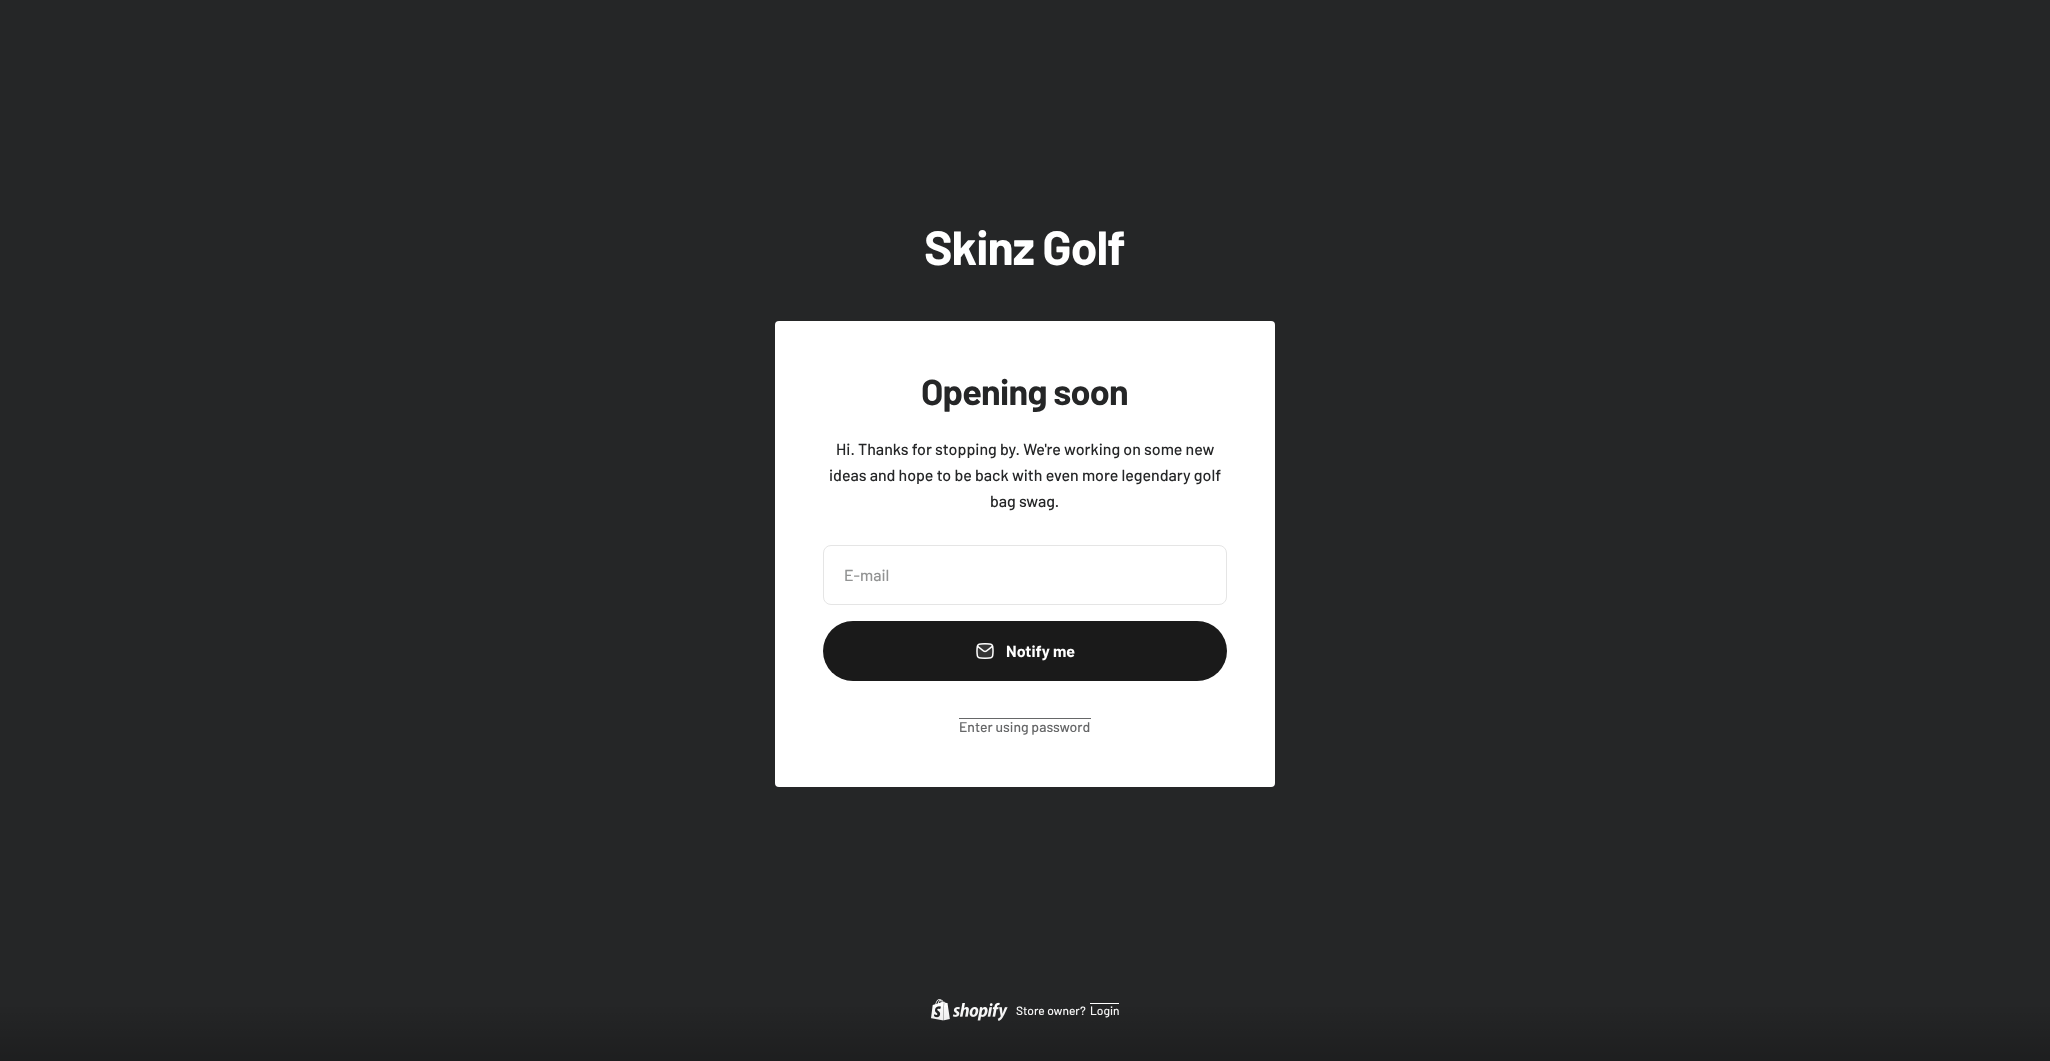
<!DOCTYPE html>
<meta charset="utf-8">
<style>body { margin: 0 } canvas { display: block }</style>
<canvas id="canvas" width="2050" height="1061"></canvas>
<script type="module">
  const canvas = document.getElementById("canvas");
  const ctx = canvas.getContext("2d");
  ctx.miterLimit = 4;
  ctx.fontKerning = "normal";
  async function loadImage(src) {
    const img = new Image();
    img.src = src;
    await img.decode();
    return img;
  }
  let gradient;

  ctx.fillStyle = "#252627";
  ctx.fillRect(0, 0, 2050, 1061);
  ctx.letterSpacing = "-1px";
  ctx.font = "bold 48px Barlow";
  ctx.fillStyle = "#ffffff";
  ctx.fillText("Skinz Golf", 924, 265);
  ctx.beginPath();
  ctx.roundRect(775, 321, 500, 466, 4);
  ctx.fill();
  ctx.letterSpacing = "-0.75px";
  ctx.font = "bold 36px Barlow";
  ctx.fillStyle = "#252627";
  ctx.fillText("Opening soon", 921, 405);
  ctx.letterSpacing = "0px";
  ctx.font = "500 16px Barlow";
  ctx.fillText("Hi. Thanks for stopping by. We're working on some new", 836, 455);
  ctx.fillText("ideas and hope to be back with even more legendary golf", 829, 481);
  ctx.fillText("bag swag.", 990, 507);
  ctx.beginPath();
  ctx.roundRect(823.5, 545.5, 403, 59, 7.5);
  ctx.strokeStyle = "#e5e5e5";
  ctx.stroke();
  ctx.fillStyle = "#929393";
  ctx.fillText("E-mail", 844, 581);
  ctx.fillStyle = "#1a1a1a";
  ctx.beginPath();
  ctx.roundRect(823, 621, 404, 60, 30);
  ctx.fill();
  ctx.drawImage(await loadImage("img1.png"), 976, 643, 18, 16);
  ctx.font = "bold 16px Barlow";
  ctx.fillStyle = "#ffffff";
  ctx.fillText("Notify me", 1006, 657);
  ctx.font = "500 14px Barlow";
  ctx.fillStyle = "#666768";
  ctx.fillText("Enter using password", 959, 732);
  ctx.fillRect(959, 718, 132, 1);
  ctx.drawImage(await loadImage("img2.png"), 931, 999, 77, 22);
  ctx.font = "500 12px Barlow";
  ctx.fillStyle = "#ffffff";
  ctx.fillText("Store owner?", 1016, 1015);
  ctx.fillText("Login", 1090, 1015);
  ctx.fillRect(1090, 1003, 29, 1);
  gradient = ctx.createLinearGradient(1025, 1001, 1025, 1061);
  gradient.addColorStop(0, "rgba(0, 0, 0, 0)");
  gradient.addColorStop(1, "rgba(0, 0, 0, 0.2)");
  ctx.fillStyle = gradient;
  ctx.fillRect(0, 1007, 2050, 54);
</script>
